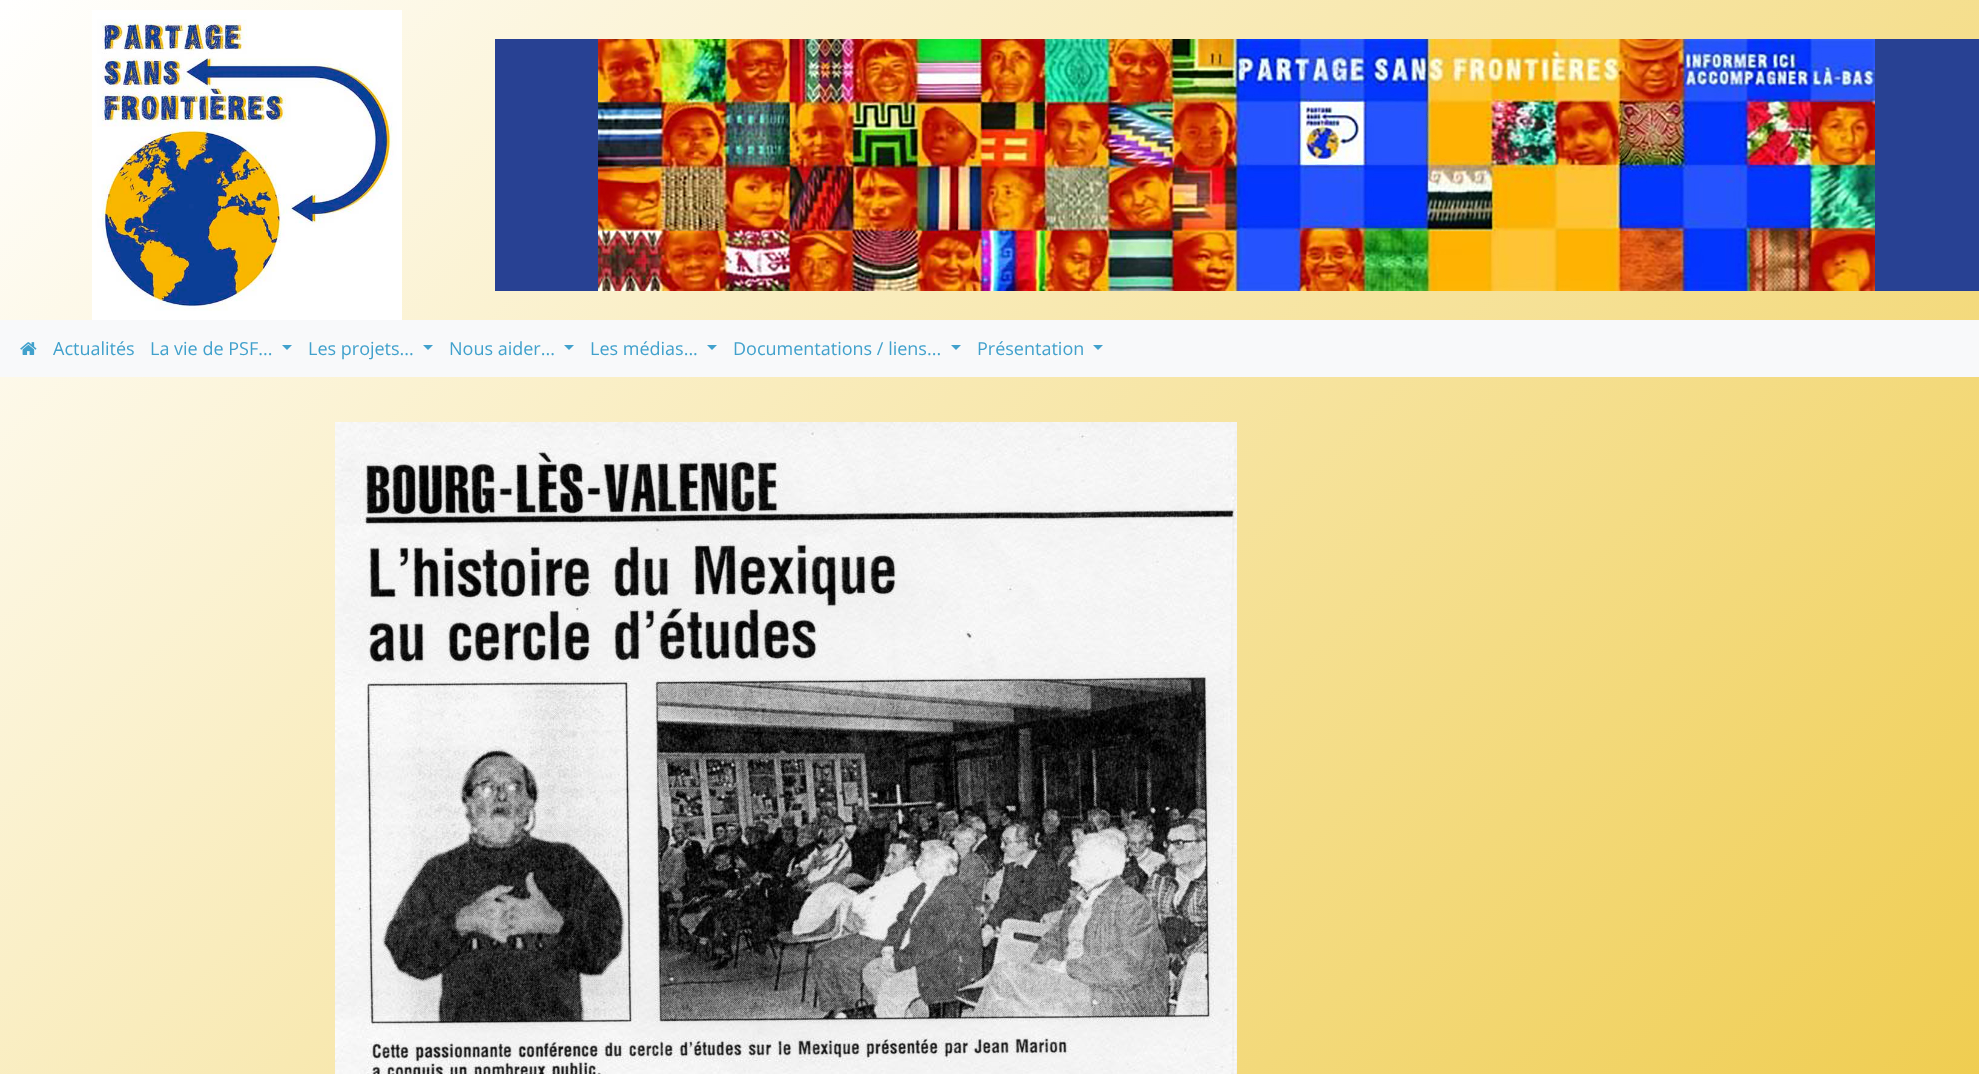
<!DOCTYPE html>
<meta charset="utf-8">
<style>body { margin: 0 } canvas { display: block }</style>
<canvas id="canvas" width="1979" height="1074"></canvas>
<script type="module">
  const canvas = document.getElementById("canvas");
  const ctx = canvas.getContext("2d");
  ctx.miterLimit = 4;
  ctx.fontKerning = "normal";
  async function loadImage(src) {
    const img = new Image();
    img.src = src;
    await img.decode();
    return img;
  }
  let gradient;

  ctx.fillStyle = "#ffffff";
  ctx.fillRect(0, 0, 1979, 1074);
  gradient = ctx.createLinearGradient(-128, 128, 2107, 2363);
  gradient.addColorStop(0, "#ffffff");
  gradient.addColorStop(1, "#e8b600");
  ctx.fillStyle = gradient;
  ctx.fillRect(0, 0, 1979, 1074);
  ctx.drawImage(await loadImage("img1.png"), 92, 10, 310, 310);
  ctx.fillStyle = "#284193";
  ctx.fillRect(495, 39, 1484, 252);
  ctx.drawImage(await loadImage("img2.png"), 598, 39, 1277, 252);
  ctx.fillStyle = "#f8f9fa";
  ctx.fillRect(0, 320, 1979, 57);
  ctx.drawImage(await loadImage("img3.png"), 20, 342, 17, 13);
  ctx.font = "18px Open Sans";
  ctx.fillStyle = "#41a1cc";
  ctx.fillText("Actualités", 53, 355);
  ctx.fillText("La vie de PSF...", 150, 355);
  ctx.beginPath();
  ctx.moveTo(282, 345);
  ctx.lineTo(292, 345);
  ctx.lineTo(287, 350);
  ctx.closePath();
  ctx.fill();
  ctx.fillText("Les projets...", 308, 355);
  ctx.beginPath();
  ctx.moveTo(423, 345);
  ctx.lineTo(433, 345);
  ctx.lineTo(428, 350);
  ctx.closePath();
  ctx.fill();
  ctx.fillText("Nous aider...", 449, 355);
  ctx.beginPath();
  ctx.moveTo(564, 345);
  ctx.lineTo(574, 345);
  ctx.lineTo(569, 350);
  ctx.closePath();
  ctx.fill();
  ctx.fillText("Les médias...", 590, 355);
  ctx.beginPath();
  ctx.moveTo(707, 345);
  ctx.lineTo(717, 345);
  ctx.lineTo(712, 350);
  ctx.closePath();
  ctx.fill();
  ctx.fillText("Documentations / liens...", 733, 355);
  ctx.beginPath();
  ctx.moveTo(951, 345);
  ctx.lineTo(961, 345);
  ctx.lineTo(956, 350);
  ctx.closePath();
  ctx.fill();
  ctx.fillText("Présentation", 977, 355);
  ctx.beginPath();
  ctx.moveTo(1093, 345);
  ctx.lineTo(1103, 345);
  ctx.lineTo(1098, 350);
  ctx.closePath();
  ctx.fill();
  ctx.drawImage(await loadImage("img4.png"), 335, 422, 902, 652);
</script>
